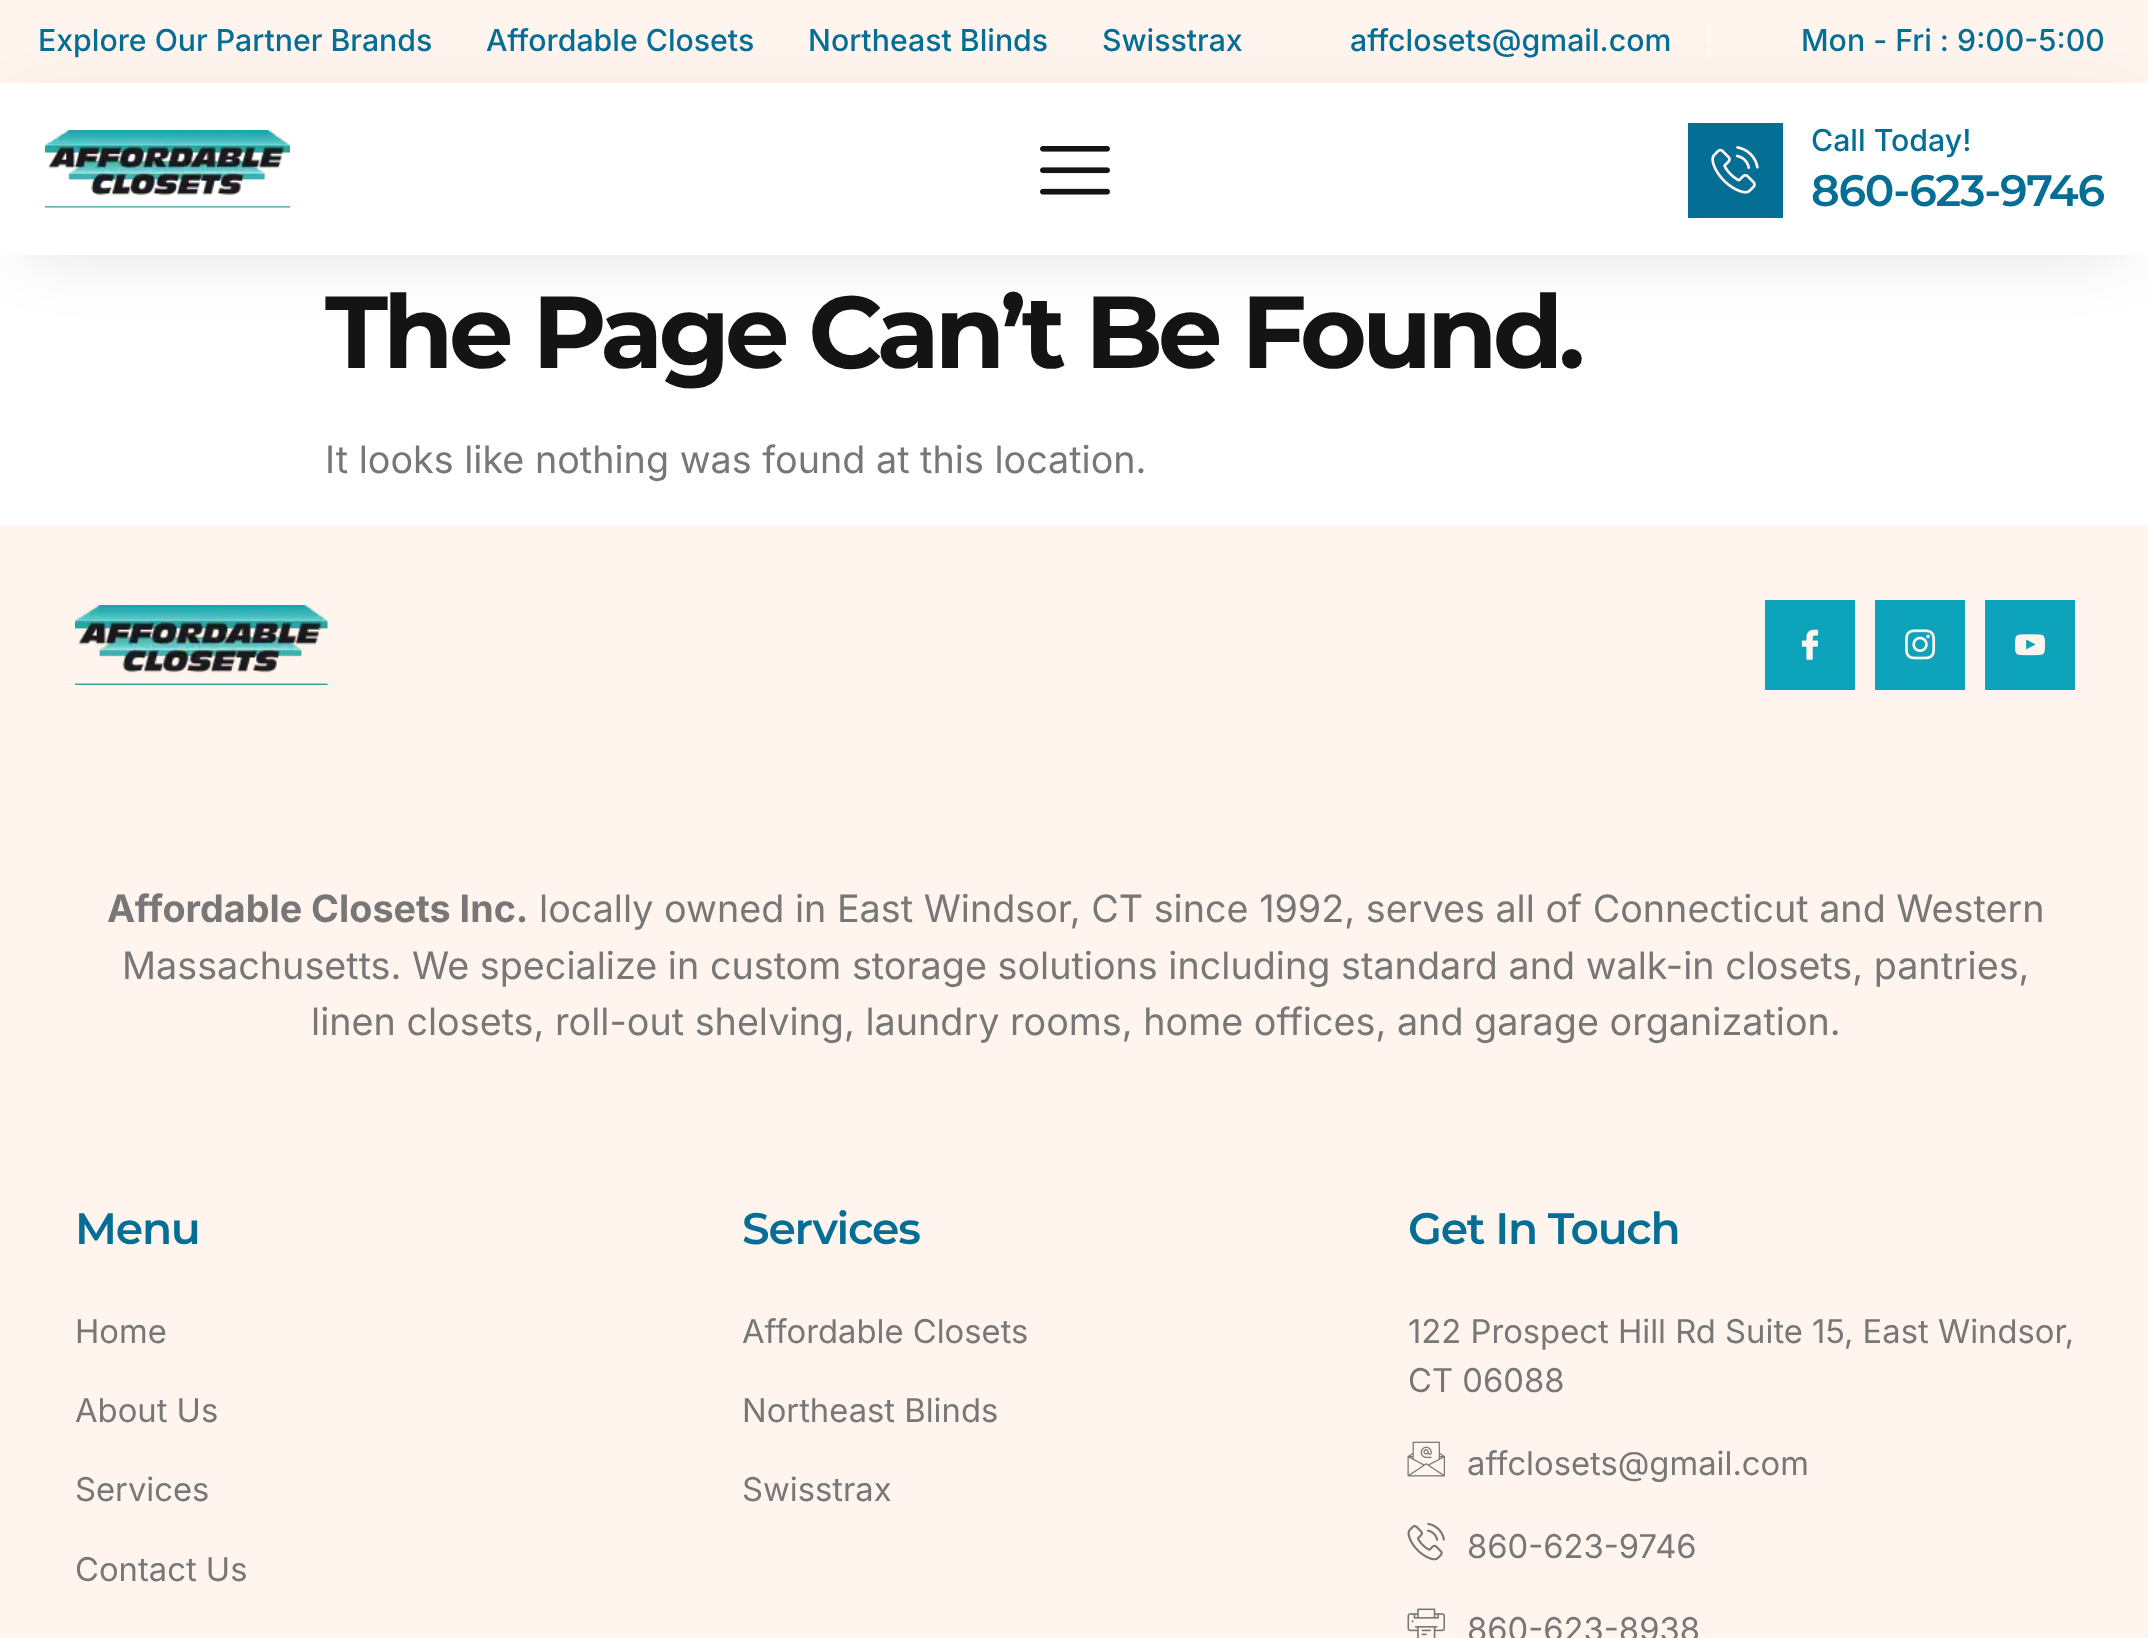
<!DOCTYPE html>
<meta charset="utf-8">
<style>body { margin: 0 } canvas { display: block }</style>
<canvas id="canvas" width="2148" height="1638"></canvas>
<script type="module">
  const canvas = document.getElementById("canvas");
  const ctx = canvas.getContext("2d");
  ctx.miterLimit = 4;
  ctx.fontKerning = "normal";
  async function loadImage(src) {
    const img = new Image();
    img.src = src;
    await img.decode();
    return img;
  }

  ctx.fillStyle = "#ffffff";
  ctx.fillRect(0, 0, 2148, 1638);
  ctx.fillStyle = "#fff4ee";
  ctx.fillRect(0, 0, 2148, 83);
  ctx.font = "500 30.25px Inter";
  ctx.fillStyle = "#046e95";
  ctx.fillText("Explore Our Partner Brands", 38, 51);
  ctx.fillText("Affordable Closets", 486, 51);
  ctx.fillText("Northeast Blinds", 808, 51);
  ctx.fillText("Swisstrax", 1102, 51);
  ctx.fillText("affclosets@gmail.com", 1350, 51);
  ctx.fillStyle = "#fff7f3";
  ctx.fillRect(1708, 23, 3, 37);
  ctx.fillStyle = "#046e95";
  ctx.fillText("Mon - Fri : 9:00-5:00", 1801, 51);
  ctx.save();
  ctx.beginPath();
  ctx.moveTo(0, 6);
  ctx.lineTo(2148, 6);
  ctx.lineTo(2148, 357);
  ctx.lineTo(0, 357);
  ctx.closePath();
  ctx.moveTo(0, 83);
  ctx.lineTo(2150, 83);
  ctx.lineTo(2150, 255);
  ctx.lineTo(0, 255);
  ctx.closePath();
  ctx.clip("evenodd");
  ctx.fillStyle = "rgba(0, 0, 0, 0.15)";
  ctx.filter = "blur(37.5px)";
  ctx.beginPath();
  ctx.rect(25, 120, 2100, 123);
  ctx.fill();
  ctx.filter = "none";
  ctx.restore();
  ctx.drawImage(await loadImage("img1.png"), 45, 130, 245, 78);
  ctx.drawImage(await loadImage("img2.png"), 1040, 146, 70, 49);
  ctx.fillRect(1688, 123, 95, 95);
  ctx.drawImage(await loadImage("img3.png"), 1711, 146, 48, 48);
  ctx.fillText("Call Today!", 1811, 151);
  ctx.letterSpacing = "-1.25px";
  ctx.font = "600 44px Montserrat";
  ctx.fillText("860-623-9746", 1811, 206);
  ctx.letterSpacing = "-5px";
  ctx.font = "bold 102px Montserrat";
  ctx.fillStyle = "#141414";
  ctx.fillText("The Page Can’t Be Found.", 325, 368);
  ctx.letterSpacing = "0px";
  ctx.font = "37.72px Inter";
  ctx.fillStyle = "#777777";
  ctx.fillText("It looks like nothing was found at this location.", 325, 473);
  ctx.fillStyle = "#fff4ee";
  ctx.fillRect(0, 525, 2148, 1113);
  ctx.drawImage(await loadImage("img4.png"), 75, 605, 253, 80);
  ctx.fillStyle = "#0da3bb";
  ctx.fillRect(1765, 600, 90, 90);
  ctx.drawImage(await loadImage("img5.png"), 1801, 629, 18, 31);
  ctx.fillRect(1875, 600, 90, 90);
  ctx.drawImage(await loadImage("img6.png"), 1905, 629, 31, 31);
  ctx.fillRect(1985, 600, 90, 90);
  ctx.drawImage(await loadImage("img7.png"), 2015, 634, 30, 22);
  ctx.font = "bold 37.72px Inter";
  ctx.fillStyle = "#777777";
  ctx.fillText("Affordable Closets Inc.", 107, 922);
  ctx.font = "37.72px Inter";
  ctx.fillText("locally owned in East Windsor, CT since 1992, serves all of Connecticut and Western", 539, 922);
  ctx.fillText("Massachusetts. We specialize in custom storage solutions including standard and walk-in closets, pantries,", 122, 979);
  ctx.fillText("linen closets, roll-out shelving, laundry rooms, home offices, and garage organization.", 311, 1035);
  ctx.letterSpacing = "-1.25px";
  ctx.font = "600 44px Montserrat";
  ctx.fillStyle = "#046e95";
  ctx.fillText("Menu", 75, 1244);
  ctx.letterSpacing = "0px";
  ctx.font = "32.75px Inter";
  ctx.fillStyle = "#777777";
  ctx.fillText("Home", 75, 1343);
  ctx.fillText("About Us", 75, 1422);
  ctx.fillText("Services", 75, 1501);
  ctx.fillText("Contact Us", 75, 1581);
  ctx.letterSpacing = "-1.25px";
  ctx.font = "600 44px Montserrat";
  ctx.fillStyle = "#046e95";
  ctx.fillText("Services", 742, 1244);
  ctx.letterSpacing = "0px";
  ctx.font = "32.75px Inter";
  ctx.fillStyle = "#777777";
  ctx.fillText("Affordable Closets", 742, 1343);
  ctx.fillText("Northeast Blinds", 742, 1422);
  ctx.fillText("Swisstrax", 742, 1501);
  ctx.letterSpacing = "-1.25px";
  ctx.font = "600 44px Montserrat";
  ctx.fillStyle = "#046e95";
  ctx.fillText("Get In Touch", 1408, 1244);
  ctx.letterSpacing = "0px";
  ctx.font = "32.75px Inter";
  ctx.fillStyle = "#777777";
  ctx.fillText("122 Prospect Hill Rd Suite 15, East Windsor,", 1408, 1343);
  ctx.fillText("CT 06088", 1408, 1392);
  ctx.drawImage(await loadImage("img8.png"), 1407, 1441, 38, 36);
  ctx.fillText("affclosets@gmail.com", 1467, 1475);
  ctx.drawImage(await loadImage("img9.png"), 1407, 1522, 38, 39);
  ctx.fillText("860-623-9746", 1467, 1558);
  ctx.drawImage(await loadImage("img10.png"), 1407, 1608, 38, 30);
  ctx.fillText("860-623-8938", 1467, 1641);
</script>
